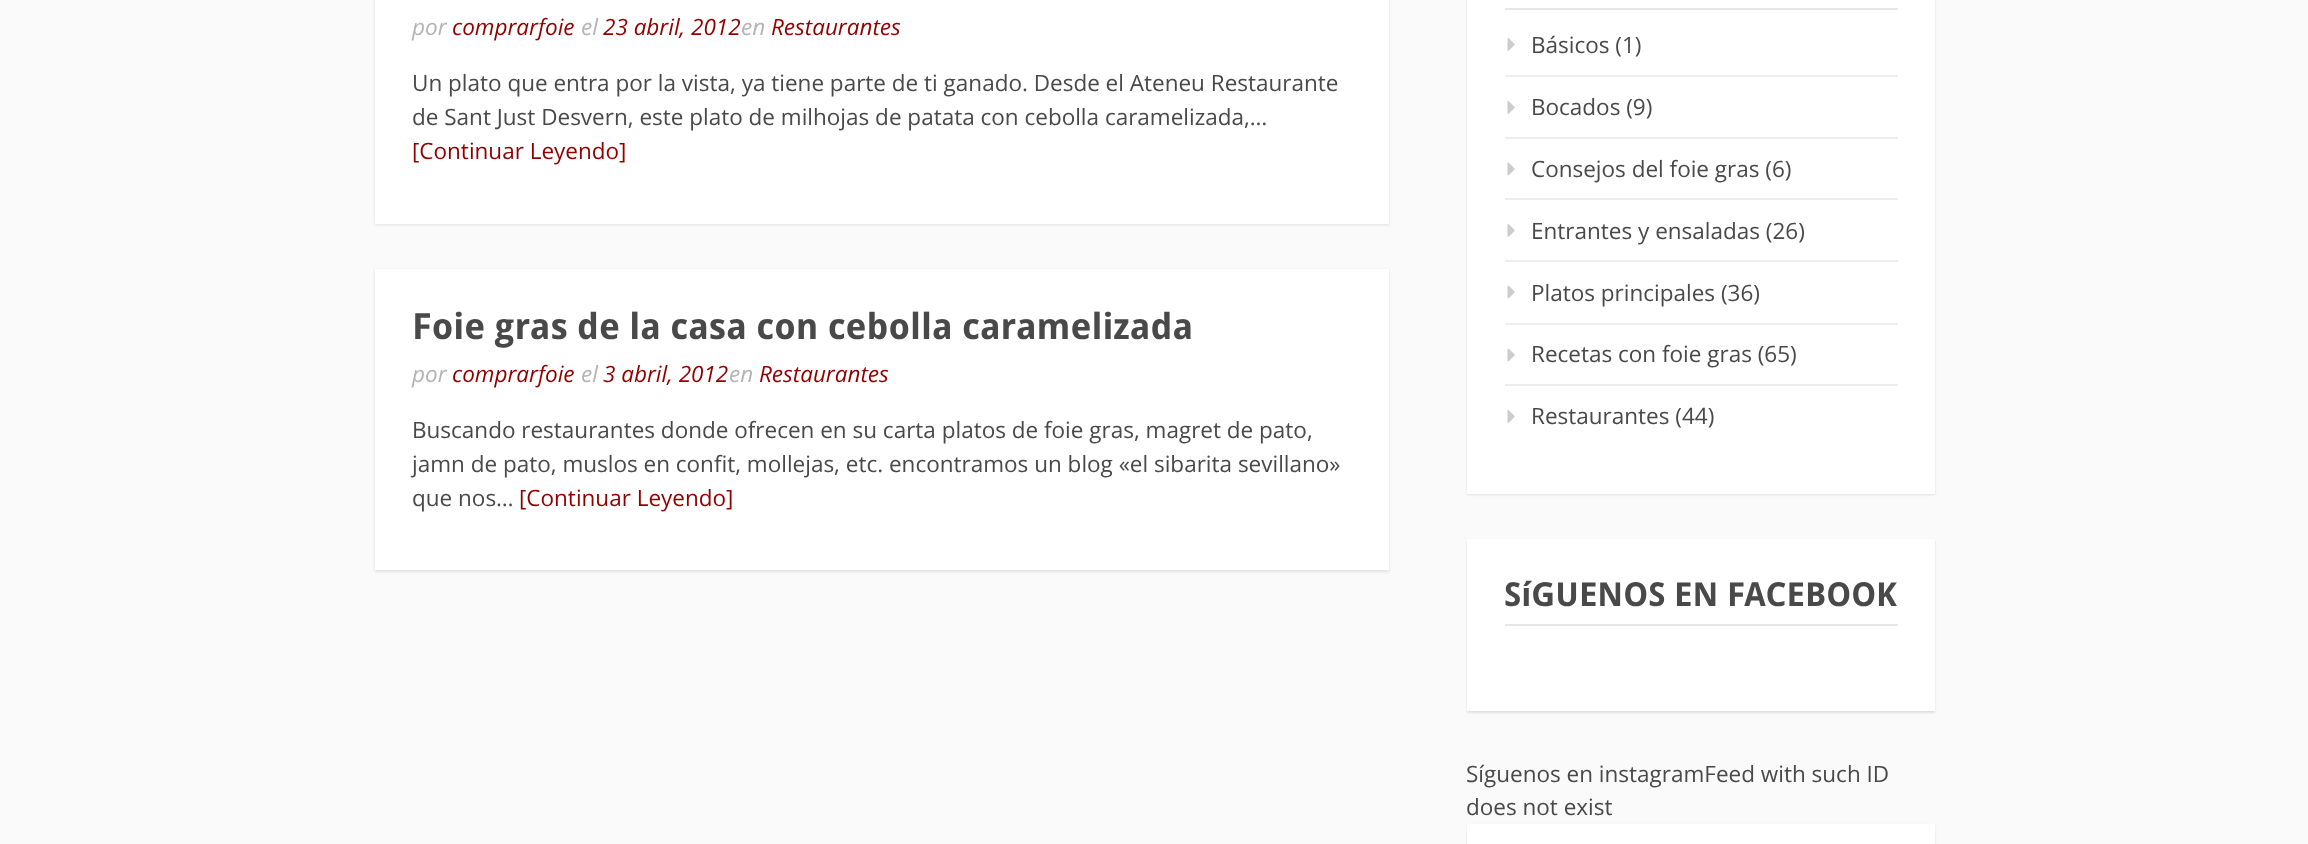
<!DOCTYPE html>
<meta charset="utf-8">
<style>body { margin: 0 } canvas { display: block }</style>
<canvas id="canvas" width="2308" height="844"></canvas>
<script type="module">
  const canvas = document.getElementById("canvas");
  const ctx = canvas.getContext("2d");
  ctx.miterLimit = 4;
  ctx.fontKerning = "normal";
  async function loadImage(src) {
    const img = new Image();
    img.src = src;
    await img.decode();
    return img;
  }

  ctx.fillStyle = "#fafafa";
  ctx.fillRect(0, 0, 2308, 844);
  ctx.fillStyle = "rgba(0, 0, 0, 0.1)";
  ctx.filter = "blur(1.5px)";
  ctx.beginPath();
  ctx.rect(375, -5, 1014, 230);
  ctx.fill();
  ctx.filter = "none";
  ctx.fillStyle = "#ffffff";
  ctx.fillRect(375, 0, 1014, 224);
  ctx.font = "italic 22.5px Open Sans";
  ctx.fillStyle = "#b4b4b4";
  ctx.fillText("por", 412, 35);
  ctx.fillStyle = "#910000";
  ctx.fillText("comprarfoie", 452, 35);
  ctx.fillStyle = "#b4b4b4";
  ctx.fillText("el", 581, 35);
  ctx.fillStyle = "#910000";
  ctx.fillText("23 abril, 2012", 603, 35);
  ctx.fillStyle = "#b4b4b4";
  ctx.fillText("en", 741, 35);
  ctx.fillStyle = "#910000";
  ctx.fillText("Restaurantes", 771, 35);
  ctx.font = "22.5px Open Sans";
  ctx.fillStyle = "#494949";
  ctx.fillText("Un plato que entra por la vista, ya tiene parte de ti ganado. Desde el Ateneu Restaurante", 412, 91);
  ctx.fillText("de Sant Just Desvern, este plato de milhojas de patata con cebolla caramelizada,…", 412, 125);
  ctx.fillStyle = "#910000";
  ctx.fillText("[Continuar Leyendo]", 412, 159);
  ctx.fillStyle = "rgba(0, 0, 0, 0.1)";
  ctx.filter = "blur(1.5px)";
  ctx.beginPath();
  ctx.rect(375, 270, 1014, 302);
  ctx.fill();
  ctx.filter = "none";
  ctx.fillStyle = "#ffffff";
  ctx.fillRect(375, 269, 1014, 301);
  ctx.font = "bold 36px Droid Sans";
  ctx.fillStyle = "#494949";
  ctx.fillText("Foie gras de la casa con cebolla caramelizada", 412, 339);
  ctx.font = "italic 22.5px Open Sans";
  ctx.fillStyle = "#b4b4b4";
  ctx.fillText("por", 412, 382);
  ctx.fillStyle = "#910000";
  ctx.fillText("comprarfoie", 452, 382);
  ctx.fillStyle = "#b4b4b4";
  ctx.fillText("el", 581, 382);
  ctx.fillStyle = "#910000";
  ctx.fillText("3 abril, 2012", 603, 382);
  ctx.fillStyle = "#b4b4b4";
  ctx.fillText("en", 729, 382);
  ctx.fillStyle = "#910000";
  ctx.fillText("Restaurantes", 759, 382);
  ctx.font = "22.5px Open Sans";
  ctx.fillStyle = "#494949";
  ctx.fillText("Buscando restaurantes donde ofrecen en su carta platos de foie gras, magret de pato,", 412, 438);
  ctx.fillText("jamn de pato, muslos en confit, mollejas, etc. encontramos un blog «el sibarita sevillano»", 412, 472);
  ctx.fillText("que nos…", 412, 506);
  ctx.fillStyle = "#910000";
  ctx.fillText("[Continuar Leyendo]", 519, 506);
  ctx.fillStyle = "rgba(0, 0, 0, 0.1)";
  ctx.filter = "blur(1px)";
  ctx.beginPath();
  ctx.rect(1467, -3, 468, 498);
  ctx.fill();
  ctx.filter = "none";
  ctx.fillStyle = "#ffffff";
  ctx.fillRect(1467, 0, 468, 494);
  ctx.fillStyle = "#e6e6e6";
  ctx.fillRect(1505, 8, 393, 2);
  ctx.fillStyle = "#eeeeee";
  ctx.fillRect(1505, 75, 393, 2);
  ctx.drawImage(await loadImage("img1.png"), 1507, 38, 8, 13);
  ctx.fillStyle = "#494949";
  ctx.fillText("Básicos (1)", 1531, 53);
  ctx.fillStyle = "#eeeeee";
  ctx.fillRect(1505, 137, 393, 2);
  ctx.drawImage(await loadImage("img1.png"), 1507, 101, 8, 13);
  ctx.fillStyle = "#494949";
  ctx.fillText("Bocados (9)", 1531, 115);
  ctx.fillStyle = "#eeeeee";
  ctx.fillRect(1505, 198, 393, 2);
  ctx.drawImage(await loadImage("img2.png"), 1507, 162, 8, 14);
  ctx.fillStyle = "#494949";
  ctx.fillText("Consejos del foie gras (6)", 1531, 177);
  ctx.fillStyle = "#eeeeee";
  ctx.fillRect(1505, 260, 393, 2);
  ctx.drawImage(await loadImage("img1.png"), 1507, 224, 8, 13);
  ctx.fillStyle = "#494949";
  ctx.fillText("Entrantes y ensaladas (26)", 1531, 239);
  ctx.fillStyle = "#eeeeee";
  ctx.fillRect(1505, 323, 393, 2);
  ctx.drawImage(await loadImage("img2.png"), 1507, 285, 8, 14);
  ctx.fillStyle = "#494949";
  ctx.fillText("Platos principales (36)", 1531, 301);
  ctx.fillStyle = "#eeeeee";
  ctx.fillRect(1505, 384, 393, 2);
  ctx.drawImage(await loadImage("img2.png"), 1507, 348, 8, 14);
  ctx.fillStyle = "#494949";
  ctx.fillText("Recetas con foie gras (65)", 1531, 362);
  ctx.drawImage(await loadImage("img1.png"), 1507, 410, 8, 13);
  ctx.fillText("Restaurantes (44)", 1531, 424);
  ctx.fillStyle = "rgba(0, 0, 0, 0.1)";
  ctx.filter = "blur(1px)";
  ctx.beginPath();
  ctx.rect(1467, 540, 468, 173);
  ctx.fill();
  ctx.filter = "none";
  ctx.fillStyle = "#ffffff";
  ctx.fillRect(1467, 539, 468, 172);
  ctx.fillStyle = "#e6e6e6";
  ctx.fillRect(1505, 624, 393, 2);
  ctx.font = "bold 33px Droid Sans";
  ctx.fillStyle = "#494949";
  ctx.fillText("SíGUENOS EN FACEBOOK", 1504, 606);
  ctx.font = "22.5px Open Sans";
  ctx.fillText("Síguenos en instagramFeed with such ID", 1466, 782);
  ctx.fillText("does not exist", 1466, 815);
  ctx.fillStyle = "rgba(0, 0, 0, 0.1)";
  ctx.filter = "blur(1px)";
  ctx.beginPath();
  ctx.rect(1467, 825, 468, 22);
  ctx.fill();
  ctx.filter = "none";
  ctx.fillStyle = "#ffffff";
  ctx.fillRect(1467, 824, 468, 20);
</script>
